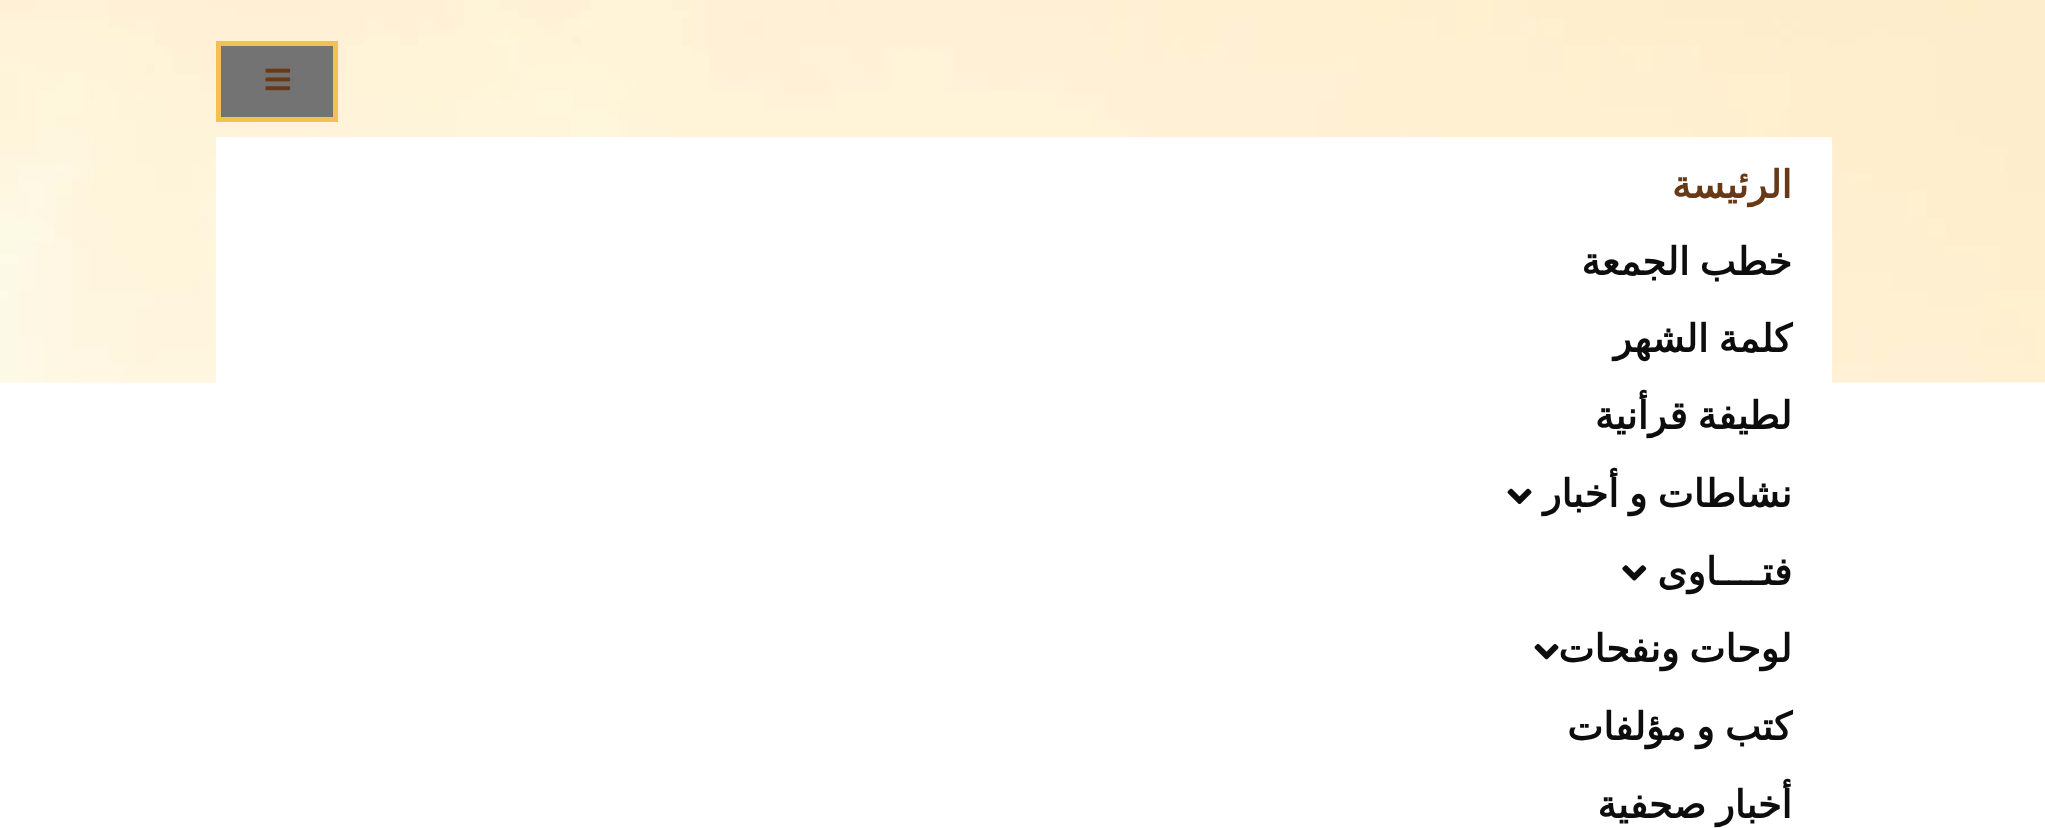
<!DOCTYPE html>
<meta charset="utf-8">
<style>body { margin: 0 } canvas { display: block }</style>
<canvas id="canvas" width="2045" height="828"></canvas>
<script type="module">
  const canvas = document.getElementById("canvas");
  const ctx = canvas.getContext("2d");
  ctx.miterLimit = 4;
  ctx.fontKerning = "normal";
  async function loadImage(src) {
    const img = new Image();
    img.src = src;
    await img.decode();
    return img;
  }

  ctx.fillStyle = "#ffffff";
  ctx.fillRect(0, 0, 2045, 828);
  ctx.drawImage(await loadImage("img1.png"), 0, 0, 2045, 383);
  ctx.fillStyle = "#737373";
  ctx.beginPath();
  ctx.rect(218.5, 43.5, 117, 76);
  ctx.fill();
  ctx.strokeStyle = "#f1c152";
  ctx.lineWidth = 5;
  ctx.stroke();
  ctx.drawImage(await loadImage("img2.png"), 265, 68, 26, 23);
  ctx.fillStyle = "#ffffff";
  ctx.fillRect(216, 137, 1616, 246);
  ctx.direction = "rtl";
  ctx.font = "bold 38.25px DejaVu Sans";
  ctx.fillStyle = "#683917";
  ctx.fillText("الرئيسة", 1792, 198);
  ctx.wordSpacing = "-2px";
  ctx.fillStyle = "#0d0d0d";
  ctx.fillText("خطب الجمعة", 1792, 275);
  ctx.fillText("كلمة الشهر", 1792, 352);
  ctx.fillText("لطيفة قرأنية", 1792, 429);
  ctx.fillText("نشاطات و أخبار", 1792, 507);
  ctx.drawImage(await loadImage("img3.png"), 1507, 488, 25, 17);
  ctx.wordSpacing = "0px";
  ctx.fillText("فتــــاوى", 1792, 585);
  ctx.drawImage(await loadImage("img4.png"), 1622, 565, 25, 16);
  ctx.wordSpacing = "-2px";
  ctx.fillText("لوحات ونفحات", 1792, 662);
  ctx.drawImage(await loadImage("img5.png"), 1534, 644, 25, 16);
  ctx.fillText("كتب و مؤلفات", 1792, 740);
  ctx.fillText("أخبار صحفية", 1792, 818);
</script>
